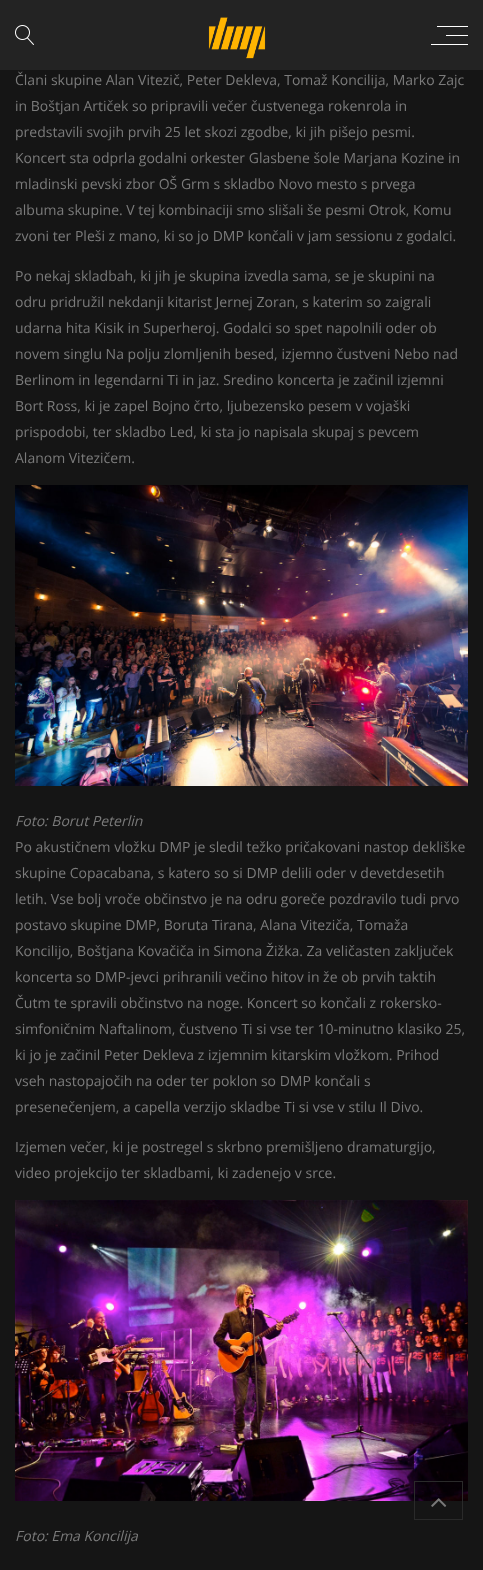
<!DOCTYPE html>
<meta charset="utf-8">
<style>body { margin: 0 } canvas { display: block }</style>
<canvas id="canvas" width="483" height="1570"></canvas>
<script type="module">
  const canvas = document.getElementById("canvas");
  const ctx = canvas.getContext("2d");
  ctx.miterLimit = 4;
  ctx.fontKerning = "normal";
  async function loadImage(src) {
    const img = new Image();
    img.src = src;
    await img.decode();
    return img;
  }

  ctx.fillStyle = "#151515";
  ctx.fillRect(0, 0, 483, 1570);
  ctx.fillStyle = "#232323";
  ctx.fillRect(0, 0, 483, 70);
  ctx.drawImage(await loadImage("img1.png"), 15, 25, 19, 20);
  ctx.drawImage(await loadImage("img2.png"), 208, 17, 58, 42);
  ctx.fillStyle = "#ffffff";
  ctx.fillRect(437, 26, 31, 1);
  ctx.fillRect(446, 35, 22, 1);
  ctx.fillRect(431, 44, 37, 1);
  ctx.font = "14px Open Sans";
  ctx.fillStyle = "#7b7b7b";
  ctx.fillText("Člani skupine Alan Vitezič, Peter Dekleva, Tomaž Koncilija, Marko Zajc", 15, 85);
  ctx.fillText("in Boštjan Artiček so pripravili večer čustvenega rokenrola in", 15, 111);
  ctx.fillText("predstavili svojih prvih 25 let skozi zgodbe, ki jih pišejo pesmi.", 15, 137);
  ctx.fillText("Koncert sta odprla godalni orkester Glasbene šole Marjana Kozine in", 15, 163);
  ctx.fillText("mladinski pevski zbor OŠ Grm s skladbo Novo mesto s prvega", 15, 189);
  ctx.fillText("albuma skupine. V tej kombinaciji smo slišali še pesmi Otrok, Komu", 15, 215);
  ctx.fillText("zvoni ter Pleši z mano, ki so jo DMP končali v jam sessionu z godalci.", 15, 241);
  ctx.fillText("Po nekaj skladbah, ki jih je skupina izvedla sama, se je skupini na", 15, 281);
  ctx.fillText("odru pridružil nekdanji kitarist Jernej Zoran, s katerim so zaigrali", 15, 307);
  ctx.fillText("udarna hita Kisik in Superheroj. Godalci so spet napolnili oder ob", 15, 333);
  ctx.fillText("novem singlu Na polju zlomljenih besed, izjemno čustveni Nebo nad", 15, 359);
  ctx.fillText("Berlinom in legendarni Ti in jaz. Sredino koncerta je začinil izjemni", 15, 385);
  ctx.fillText("Bort Ross, ki je zapel Bojno črto, ljubezensko pesem v vojaški", 15, 411);
  ctx.fillText("prispodobi, ter skladbo Led, ki sta jo napisala skupaj s pevcem", 15, 437);
  ctx.fillText("Alanom Vitezičem.", 15, 463);
  ctx.drawImage(await loadImage("img3.png"), 15, 485, 453, 301);
  ctx.font = "italic 14px Open Sans";
  ctx.fillText("Foto: Borut Peterlin", 15, 826);
  ctx.font = "14px Open Sans";
  ctx.fillText("Po akustičnem vložku DMP je sledil težko pričakovani nastop dekliške", 15, 852);
  ctx.fillText("skupine Copacabana, s katero so si DMP delili oder v devetdesetih", 15, 878);
  ctx.fillText("letih. Vse bolj vroče občinstvo je na odru goreče pozdravilo tudi prvo", 15, 904);
  ctx.fillText("postavo skupine DMP, Boruta Tirana, Alana Viteziča, Tomaža", 15, 930);
  ctx.fillText("Koncilijo, Boštjana Kovačiča in Simona Žižka. Za veličasten zaključek", 15, 956);
  ctx.fillText("koncerta so DMP-jevci prihranili večino hitov in že ob prvih taktih", 15, 982);
  ctx.fillText("Čutm te spravili občinstvo na noge. Koncert so končali z rokersko-", 15, 1008);
  ctx.fillText("simfoničnim Naftalinom, čustveno Ti si vse ter 10-minutno klasiko 25,", 15, 1034);
  ctx.fillText("ki jo je začinil Peter Dekleva z izjemnim kitarskim vložkom. Prihod", 15, 1060);
  ctx.fillText("vseh nastopajočih na oder ter poklon so DMP končali s", 15, 1086);
  ctx.fillText("presenečenjem, a capella verzijo skladbe Ti si vse v stilu Il Divo.", 15, 1112);
  ctx.fillText("Izjemen večer, ki je postregel s skrbno premišljeno dramaturgijo,", 15, 1152);
  ctx.fillText("video projekcijo ter skladbami, ki zadenejo v srce.", 15, 1178);
  ctx.drawImage(await loadImage("img4.png"), 15, 1200, 453, 301);
  ctx.font = "italic 14px Open Sans";
  ctx.fillText("Foto: Ema Koncilija", 15, 1541);
  ctx.strokeStyle = "rgba(43, 43, 43, 0.97)";
  ctx.strokeRect(414.5, 1481.5, 48, 38);
  ctx.drawImage(await loadImage("img5.png"), 431, 1498, 16, 9);
</script>
